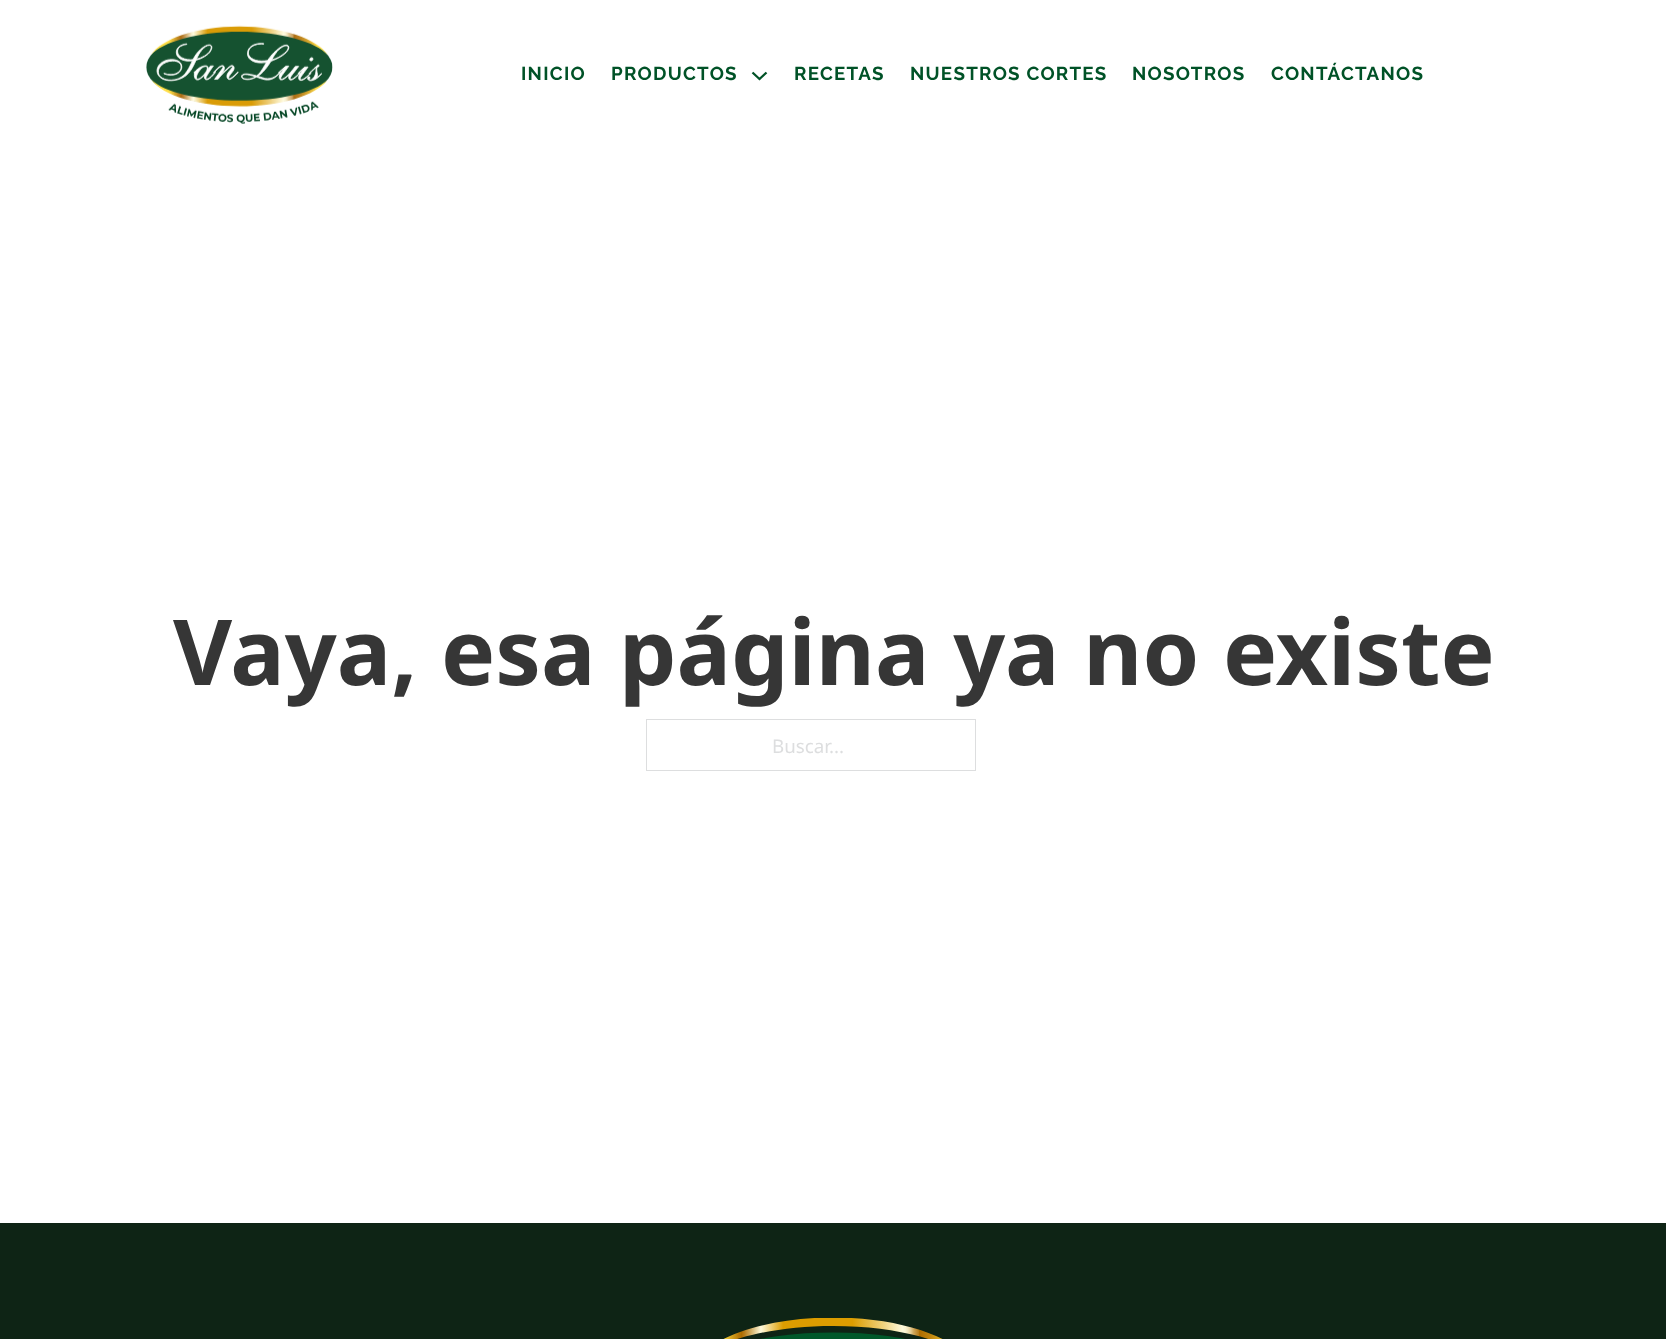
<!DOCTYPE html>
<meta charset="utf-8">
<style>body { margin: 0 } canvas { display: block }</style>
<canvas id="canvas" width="1666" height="1339"></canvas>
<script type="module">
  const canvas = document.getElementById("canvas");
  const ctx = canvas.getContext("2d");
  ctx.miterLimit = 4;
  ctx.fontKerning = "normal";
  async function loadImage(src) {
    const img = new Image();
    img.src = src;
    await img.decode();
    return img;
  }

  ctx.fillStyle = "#ffffff";
  ctx.fillRect(0, 0, 1666, 1339);
  ctx.drawImage(await loadImage("img1.png"), 146, 25, 187, 99);
  ctx.letterSpacing = "1.25px";
  ctx.font = "bold 18.75px Raleway";
  ctx.fillStyle = "#005227";
  ctx.fillText("INICIO", 521, 80);
  ctx.fillText("PRODUCTOS", 611, 80);
  ctx.beginPath();
  ctx.moveTo(752.5, 72.5);
  ctx.lineTo(759.5, 79);
  ctx.lineTo(766.5, 72.5);
  ctx.strokeStyle = "#005227";
  ctx.lineWidth = 2.3;
  ctx.stroke();
  ctx.fillText("RECETAS", 794, 80);
  ctx.fillText("NUESTROS CORTES", 910, 80);
  ctx.fillText("NOSOTROS", 1132, 80);
  ctx.fillText("CONTÁCTANOS", 1271, 80);
  ctx.letterSpacing = "0px";
  ctx.font = "bold 91px Noto Sans";
  ctx.fillStyle = "#363636";
  ctx.fillText("Vaya, esa página ya no existe", 173, 685);
  ctx.strokeStyle = "#dddedf";
  ctx.lineWidth = 1;
  ctx.strokeRect(646.5, 719.5, 329, 51);
  ctx.font = "18.75px Noto Sans";
  ctx.fillStyle = "#dddedf";
  ctx.fillText("Buscar...", 772, 753);
  ctx.fillStyle = "#0e2415";
  ctx.fillRect(0, 1223, 1666, 116);
  ctx.drawImage(await loadImage("img2.png"), 723, 1318, 220, 21);
</script>
